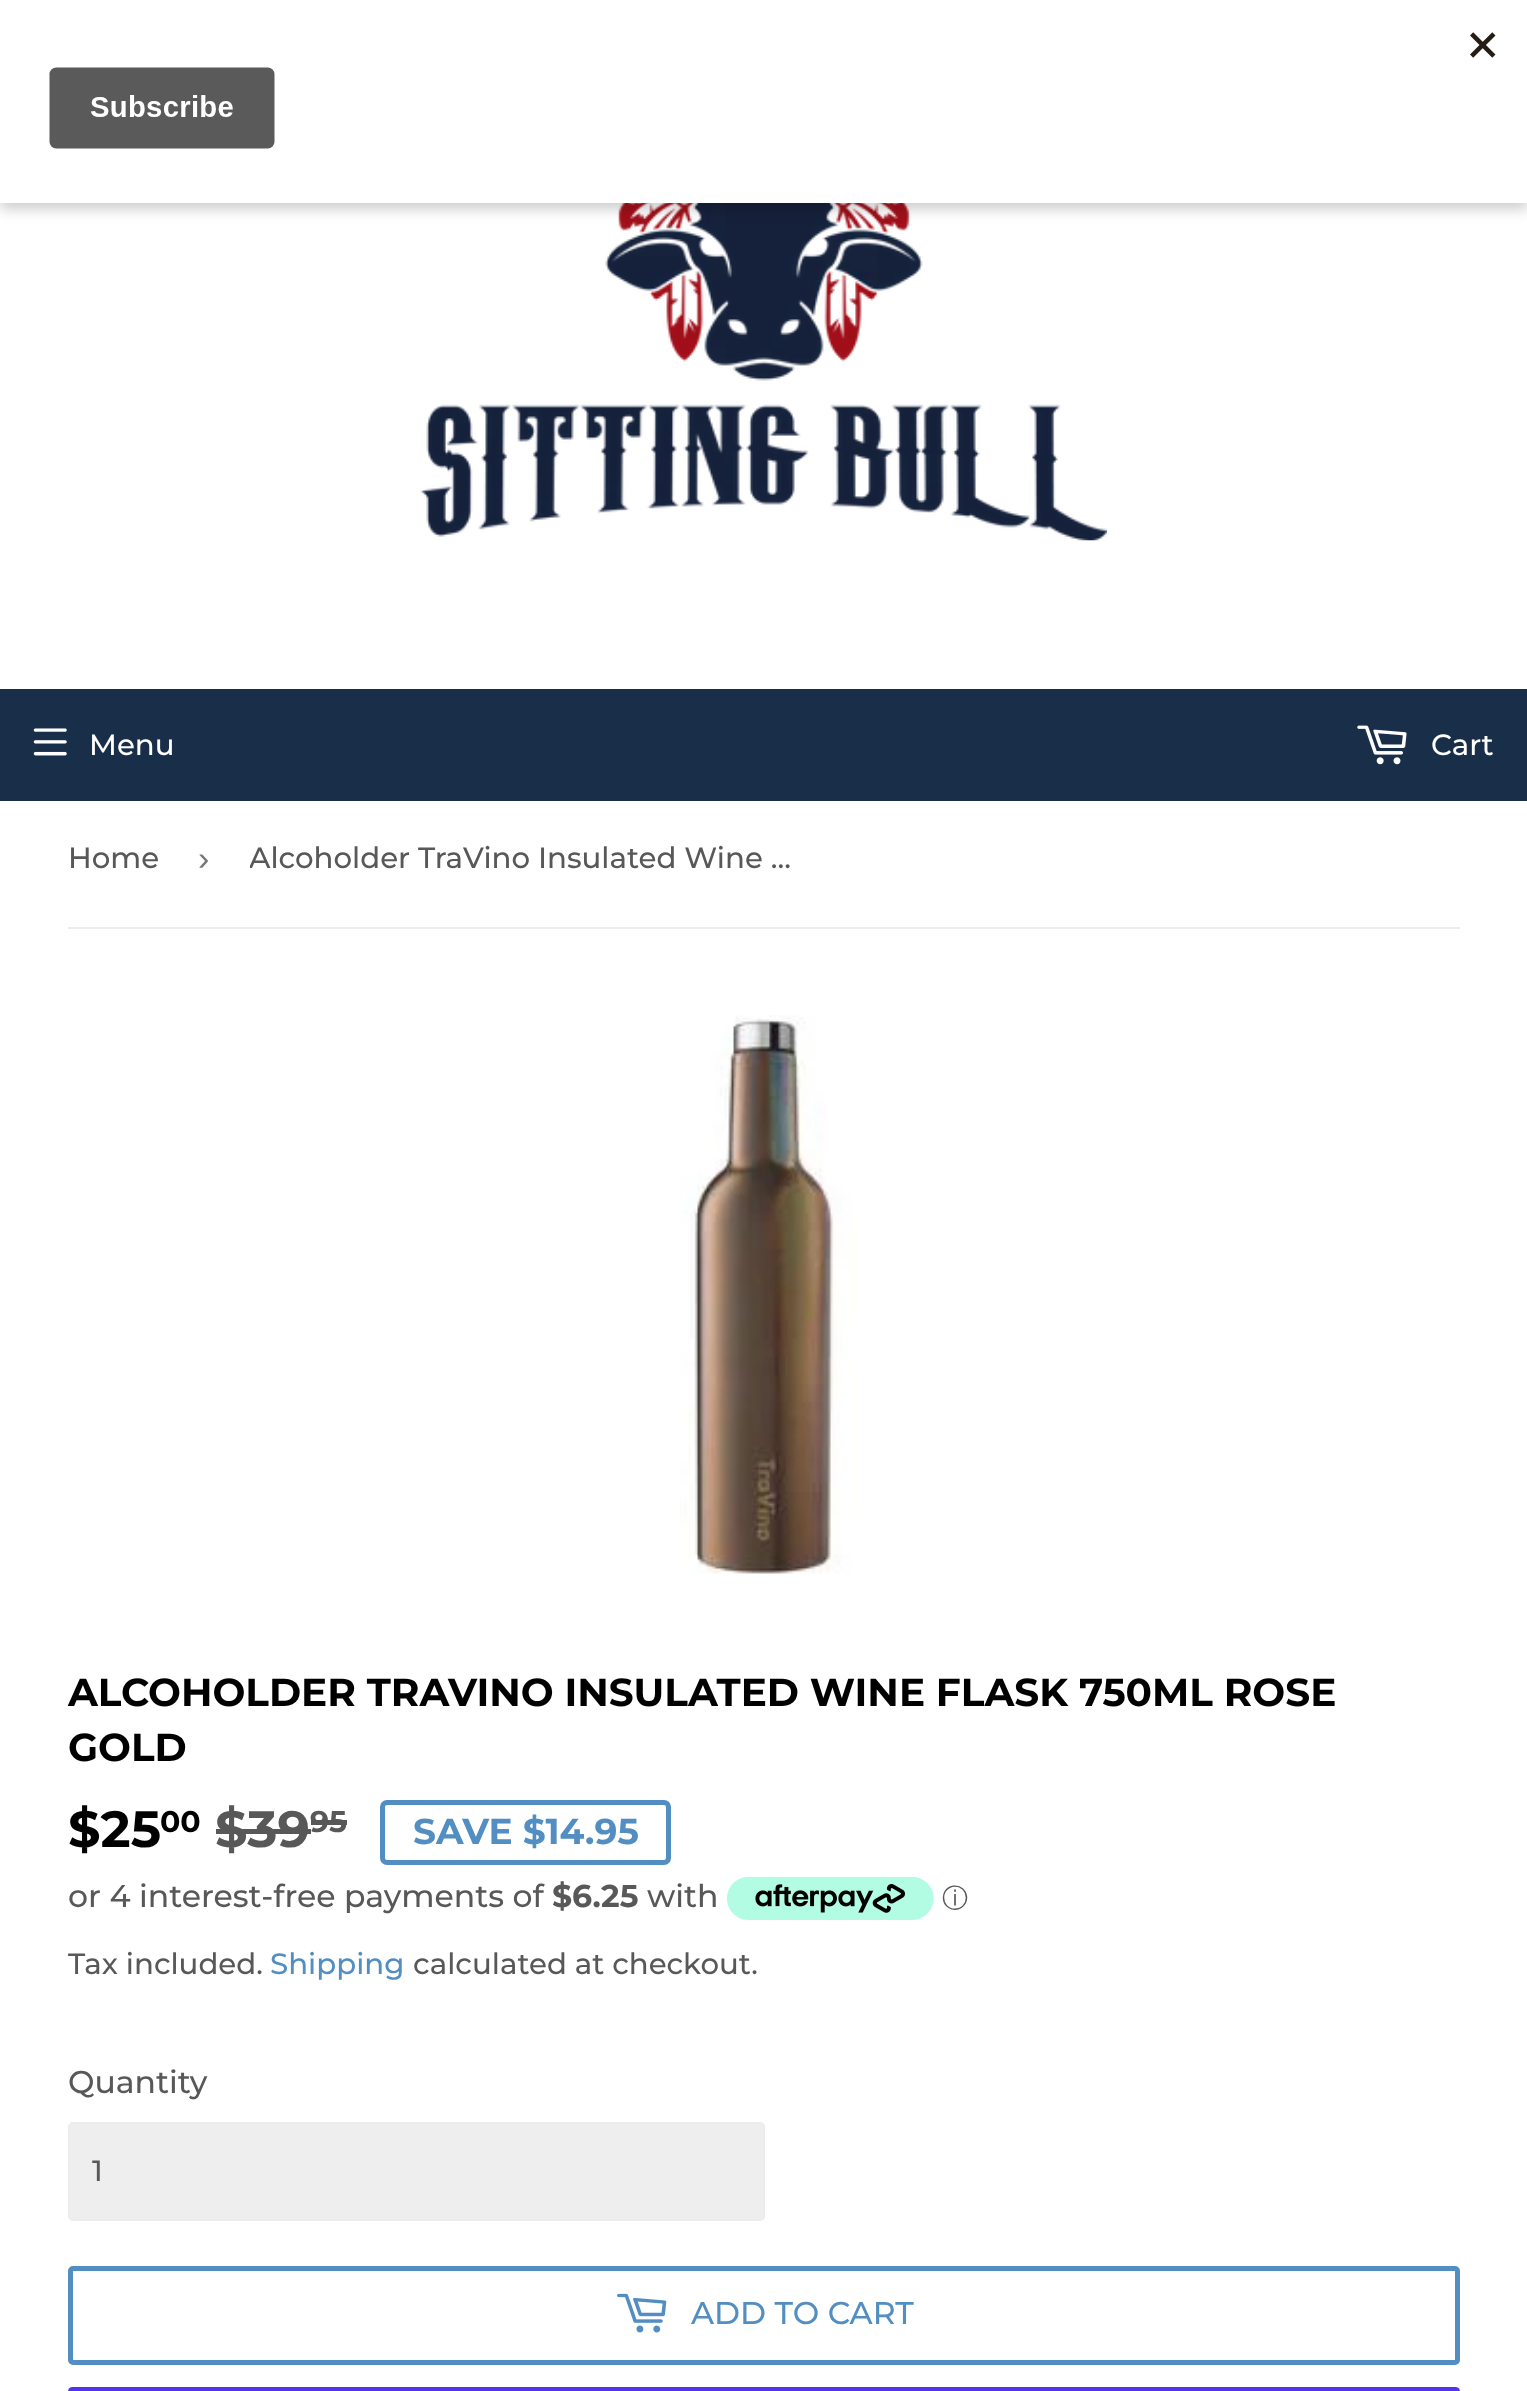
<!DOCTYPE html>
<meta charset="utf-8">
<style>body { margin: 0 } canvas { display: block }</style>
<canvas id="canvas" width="1527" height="2391"></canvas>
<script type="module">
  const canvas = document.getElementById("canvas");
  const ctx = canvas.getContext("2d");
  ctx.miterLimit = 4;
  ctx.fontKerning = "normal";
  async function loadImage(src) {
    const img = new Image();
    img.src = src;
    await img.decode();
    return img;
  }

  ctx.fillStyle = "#ffffff";
  ctx.fillRect(0, 0, 1527, 2391);
  ctx.drawImage(await loadImage("img2.png"), 420, 203, 687, 338);
  ctx.fillStyle = "rgba(0, 0, 0, 0.2)";
  ctx.filter = "blur(7px)";
  ctx.beginPath();
  ctx.rect(0, 7, 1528, 202);
  ctx.fill();
  ctx.filter = "none";
  ctx.fillStyle = "#ffffff";
  ctx.fillRect(0, 0, 1527, 203);
  ctx.drawImage(await loadImage("img1.png"), 49, 32, 1447, 117);
  ctx.fillStyle = "#182e49";
  ctx.fillRect(0, 689, 1527, 112);
  ctx.drawImage(await loadImage("img3.png"), 33, 728, 34, 28);
  ctx.font = "500 29.25px Montserrat";
  ctx.fillStyle = "#ffffff";
  ctx.fillText("Menu", 89, 755);
  ctx.drawImage(await loadImage("img4.png"), 1357, 725, 50, 40);
  ctx.fillText("Cart", 1431, 755);
  ctx.fillStyle = "#ececec";
  ctx.fillRect(68, 927, 1392, 2);
  ctx.fillStyle = "#585858";
  ctx.fillText("Home", 68, 868);
  ctx.font = "34px Liberation Sans";
  ctx.fillStyle = "#767676";
  ctx.fillText("›", 198, 870);
  ctx.save();
  ctx.beginPath();
  ctx.rect(250, 801, 562, 115);
  ctx.clip();
  ctx.font = "500 29.25px Montserrat";
  ctx.fillStyle = "#585858";
  ctx.fillText("Alcoholder TraVino Insulated Wine …", 249, 868);
  ctx.restore();
  ctx.drawImage(await loadImage("img5.png"), 680, 1015, 178, 559);
  ctx.wordSpacing = "-0.25px";
  ctx.font = "bold 39px Montserrat";
  ctx.fillStyle = "#000000";
  ctx.fillText("ALCOHOLDER TRAVINO INSULATED WINE FLASK 750ML ROSE", 68, 1706);
  ctx.wordSpacing = "0px";
  ctx.fillText("GOLD", 68, 1761);
  ctx.font = "bold 51px Montserrat";
  ctx.fillText("$25", 68, 1847);
  ctx.font = "bold 30px Montserrat";
  ctx.fillText("00", 160, 1832);
  ctx.font = "bold 51px Montserrat";
  ctx.fillStyle = "#585858";
  ctx.fillText("$39", 215, 1847);
  ctx.fillRect(216, 1829, 95, 5);
  ctx.font = "bold 30px Montserrat";
  ctx.fillText("95", 310, 1832);
  ctx.fillRect(311, 1820, 36, 5);
  ctx.beginPath();
  ctx.roundRect(382.5, 1802.5, 286, 60, 4.5);
  ctx.strokeStyle = "#528ec1";
  ctx.lineWidth = 5;
  ctx.stroke();
  ctx.font = "bold 36px Montserrat";
  ctx.fillStyle = "#528ec1";
  ctx.fillText("SAVE $14.95", 413, 1844);
  ctx.font = "500 31.5px Montserrat";
  ctx.fillStyle = "#585858";
  ctx.fillText("or 4 interest-free payments of", 68, 1907);
  ctx.font = "bold 31.5px Montserrat";
  ctx.fillText("$6.25", 552, 1907);
  ctx.font = "500 31.5px Montserrat";
  ctx.fillText("with", 647, 1907);
  ctx.drawImage(await loadImage("img6.png"), 727, 1876, 207, 44);
  ctx.font = "500 26px WenQuanYi Zen Hei";
  ctx.fillText("ⓘ", 942, 1907);
  ctx.font = "500 29.25px Montserrat";
  ctx.fillText("Tax included.", 68, 1974);
  ctx.fillStyle = "#528ec1";
  ctx.fillText("Shipping", 270, 1974);
  ctx.fillStyle = "#585858";
  ctx.fillText("calculated at checkout.", 413, 1974);
  ctx.font = "500 31.5px Montserrat";
  ctx.fillText("Quantity", 68, 2093);
  ctx.fillStyle = "#eeeeee";
  ctx.beginPath();
  ctx.roundRect(69, 2123, 695, 97, 4);
  ctx.fill();
  ctx.strokeStyle = "#ececec";
  ctx.lineWidth = 2;
  ctx.stroke();
  ctx.font = "500 29.25px Montserrat";
  ctx.fillStyle = "#585858";
  ctx.fillText("1", 92, 2181);
  ctx.beginPath();
  ctx.roundRect(70.5, 2268.5, 1387, 94, 2.5);
  ctx.strokeStyle = "#528ec1";
  ctx.lineWidth = 5;
  ctx.stroke();
  ctx.drawImage(await loadImage("img7.png"), 617, 2293, 50, 40);
  ctx.font = "500 31.5px Montserrat";
  ctx.fillStyle = "#528ec1";
  ctx.fillText("ADD TO CART", 691, 2324);
  ctx.fillStyle = "#5433eb";
  ctx.beginPath();
  ctx.roundRect(68, 2387, 1392, 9, 5);
  ctx.fill();
</script>
